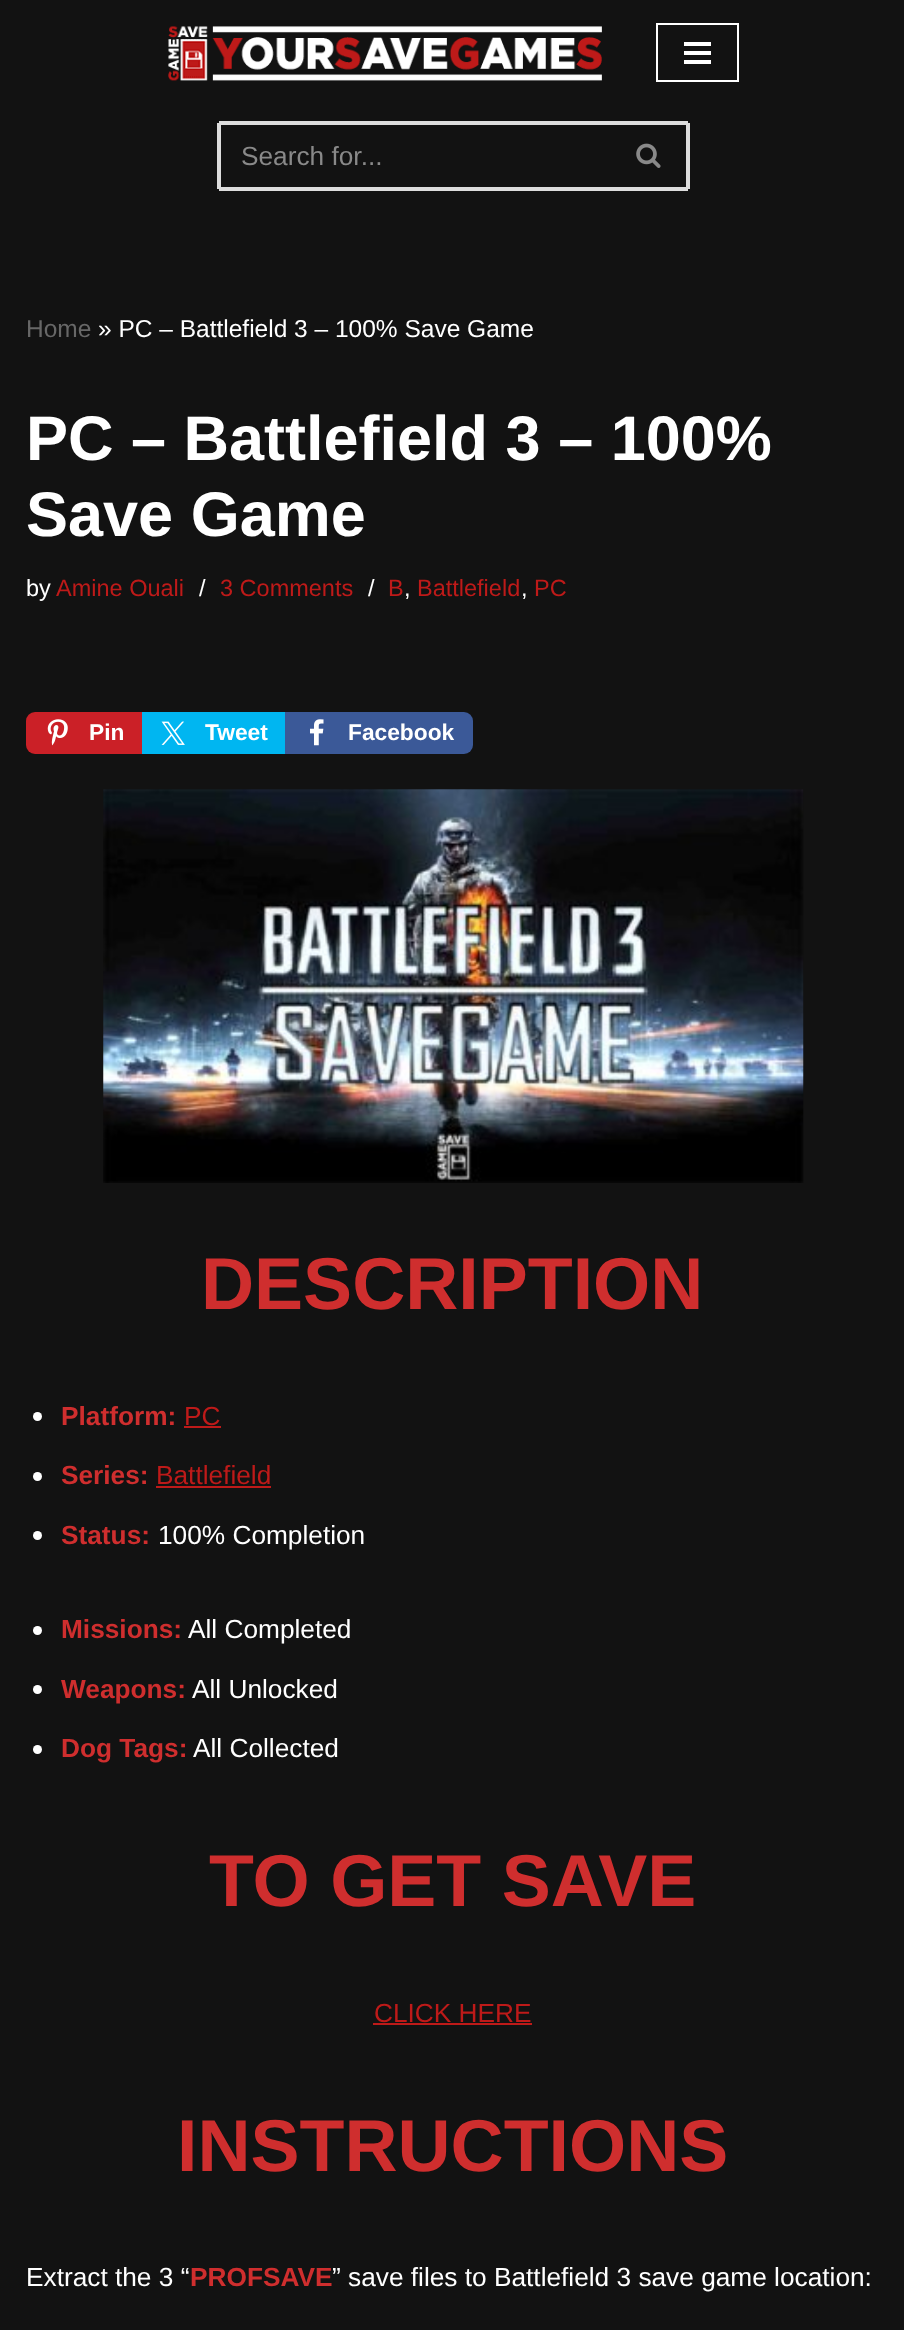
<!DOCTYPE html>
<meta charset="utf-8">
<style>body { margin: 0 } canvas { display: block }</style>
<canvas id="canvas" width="904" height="2330"></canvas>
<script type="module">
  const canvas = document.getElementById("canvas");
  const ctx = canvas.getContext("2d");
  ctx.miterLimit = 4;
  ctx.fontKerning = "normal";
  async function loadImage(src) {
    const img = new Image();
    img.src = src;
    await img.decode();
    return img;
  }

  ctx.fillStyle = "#121212";
  ctx.fillRect(0, 0, 904, 2330);
  ctx.drawImage(await loadImage("img1.png"), 168, 26, 434, 55);
  ctx.strokeStyle = "#ffffff";
  ctx.lineWidth = 2;
  ctx.strokeRect(657, 24, 81, 57);
  ctx.fillStyle = "#ffffff";
  ctx.fillRect(684, 42, 27, 4);
  ctx.fillRect(684, 51, 27, 4);
  ctx.fillRect(684, 60, 27, 4);
  ctx.fillStyle = "#dddddd";
  ctx.fillRect(219, 121, 469, 4);
  ctx.fillRect(219, 187, 392, 4);
  ctx.fillRect(217, 123, 4, 66);
  ctx.font = "26.25px Liberation Sans";
  ctx.fillStyle = "#898989";
  ctx.fillText("Search for...", 241, 165);
  ctx.fillStyle = "#dddddd";
  ctx.fillRect(686, 123, 4, 66);
  ctx.fillRect(611, 187, 77, 4);
  ctx.drawImage(await loadImage("img2.png"), 636, 143, 25, 25);
  ctx.font = "24.5px Liberation Sans";
  ctx.fillStyle = "#676767";
  ctx.fillText("Home", 26, 337);
  ctx.fillStyle = "#ffffff";
  ctx.fillText("» PC – Battlefield 3 – 100% Save Game", 98, 337);
  ctx.font = "bold 63px Liberation Sans";
  ctx.fillText("PC – Battlefield 3 – 100%", 26, 460);
  ctx.fillText("Save Game", 26, 536);
  ctx.font = "23.5px Liberation Sans";
  ctx.fillText("by", 26, 596);
  ctx.fillStyle = "#be1a19";
  ctx.fillText("Amine Ouali", 56, 596);
  ctx.fillStyle = "#ffffff";
  ctx.fillText("/", 199, 596);
  ctx.fillStyle = "#be1a19";
  ctx.fillText("3 Comments", 220, 596);
  ctx.fillStyle = "#ffffff";
  ctx.fillText("/", 368, 596);
  ctx.fillStyle = "#be1a19";
  ctx.fillText("B", 388, 596);
  ctx.fillStyle = "#ffffff";
  ctx.fillText(",", 404, 596);
  ctx.fillStyle = "#be1a19";
  ctx.fillText("Battlefield", 417, 596);
  ctx.fillStyle = "#ffffff";
  ctx.fillText(",", 521, 596);
  ctx.fillStyle = "#be1a19";
  ctx.fillText("PC", 534, 596);
  ctx.fillStyle = "#cb2027";
  ctx.beginPath();
  ctx.roundRect(26, 712, 116, 42, [9, 0, 0, 9]);
  ctx.fill();
  ctx.drawImage(await loadImage("img3.png"), 47, 719, 21, 27);
  ctx.font = "bold 22.75px Liberation Sans";
  ctx.fillStyle = "#ffffff";
  ctx.fillText("Pin", 89, 740);
  ctx.fillStyle = "#00b6f1";
  ctx.fillRect(142, 712, 143, 42);
  ctx.drawImage(await loadImage("img4.png"), 161, 721, 24, 24);
  ctx.fillStyle = "#ffffff";
  ctx.fillText("Tweet", 205, 740);
  ctx.fillStyle = "#3b5998";
  ctx.beginPath();
  ctx.roundRect(285, 712, 188, 42, [0, 9, 9, 0]);
  ctx.fill();
  ctx.drawImage(await loadImage("img5.png"), 310, 719, 14, 27);
  ctx.fillStyle = "#ffffff";
  ctx.fillText("Facebook", 348, 740);
  ctx.drawImage(await loadImage("img6.png"), 103, 789, 701, 394);
  ctx.font = "bold 73.5px Liberation Sans";
  ctx.fillStyle = "#cf2e2e";
  ctx.fillText("DESCRIPTION", 201, 1309);
  ctx.fillStyle = "#ffffff";
  ctx.beginPath();
  ctx.arc(37.5, 1416.5, 4.5, 0, Math.PI * 2);
  ctx.fill();
  ctx.font = "bold 26.25px Liberation Sans";
  ctx.fillStyle = "#cf2e2e";
  ctx.fillText("Platform:", 61, 1425);
  ctx.font = "26.25px Liberation Sans";
  ctx.fillStyle = "#be1a19";
  ctx.fillText("PC", 184, 1425);
  ctx.fillRect(184, 1426, 37, 2);
  ctx.fillStyle = "#ffffff";
  ctx.beginPath();
  ctx.arc(37.5, 1476.5, 4.5, 0, Math.PI * 2);
  ctx.fill();
  ctx.font = "bold 26.25px Liberation Sans";
  ctx.fillStyle = "#cf2e2e";
  ctx.fillText("Series:", 61, 1484);
  ctx.font = "26.25px Liberation Sans";
  ctx.fillStyle = "#be1a19";
  ctx.fillText("Battlefield", 156, 1484);
  ctx.fillRect(156, 1486, 115, 2);
  ctx.fillStyle = "#ffffff";
  ctx.beginPath();
  ctx.arc(37.5, 1535.5, 4.5, 0, Math.PI * 2);
  ctx.fill();
  ctx.font = "bold 26.25px Liberation Sans";
  ctx.fillStyle = "#cf2e2e";
  ctx.fillText("Status:", 61, 1544);
  ctx.font = "26.25px Liberation Sans";
  ctx.fillStyle = "#ffffff";
  ctx.fillText("100% Completion", 158, 1544);
  ctx.beginPath();
  ctx.arc(37.5, 1630.5, 4.5, 0, Math.PI * 2);
  ctx.fill();
  ctx.font = "bold 26.25px Liberation Sans";
  ctx.fillStyle = "#cf2e2e";
  ctx.fillText("Missions:", 61, 1638);
  ctx.font = "26.25px Liberation Sans";
  ctx.fillStyle = "#ffffff";
  ctx.fillText("All Completed", 188, 1638);
  ctx.beginPath();
  ctx.arc(37.5, 1689.5, 4.5, 0, Math.PI * 2);
  ctx.fill();
  ctx.font = "bold 26.25px Liberation Sans";
  ctx.fillStyle = "#cf2e2e";
  ctx.fillText("Weapons:", 61, 1698);
  ctx.font = "26.25px Liberation Sans";
  ctx.fillStyle = "#ffffff";
  ctx.fillText("All Unlocked", 192, 1698);
  ctx.beginPath();
  ctx.arc(37.5, 1749.5, 4.5, 0, Math.PI * 2);
  ctx.fill();
  ctx.font = "bold 26.25px Liberation Sans";
  ctx.fillStyle = "#cf2e2e";
  ctx.fillText("Dog Tags:", 61, 1757);
  ctx.font = "26.25px Liberation Sans";
  ctx.fillStyle = "#ffffff";
  ctx.fillText("All Collected", 193, 1757);
  ctx.font = "bold 73.5px Liberation Sans";
  ctx.fillStyle = "#cf2e2e";
  ctx.fillText("TO GET SAVE", 209, 1906);
  ctx.font = "26.25px Liberation Sans";
  ctx.fillStyle = "#be1a19";
  ctx.fillText("CLICK HERE", 374, 2022);
  ctx.fillRect(373, 2023, 159, 2);
  ctx.font = "bold 73.5px Liberation Sans";
  ctx.fillStyle = "#cf2e2e";
  ctx.fillText("INSTRUCTIONS", 177, 2171);
  ctx.font = "26.25px Liberation Sans";
  ctx.fillStyle = "#ffffff";
  ctx.fillText("Extract the 3 “", 26, 2286);
  ctx.font = "bold 26.25px Liberation Sans";
  ctx.fillStyle = "#cf2e2e";
  ctx.fillText("PROFSAVE", 190, 2286);
  ctx.font = "26.25px Liberation Sans";
  ctx.fillStyle = "#ffffff";
  ctx.fillText("” save files to Battlefield 3 save game location:", 332, 2286);
</script>
